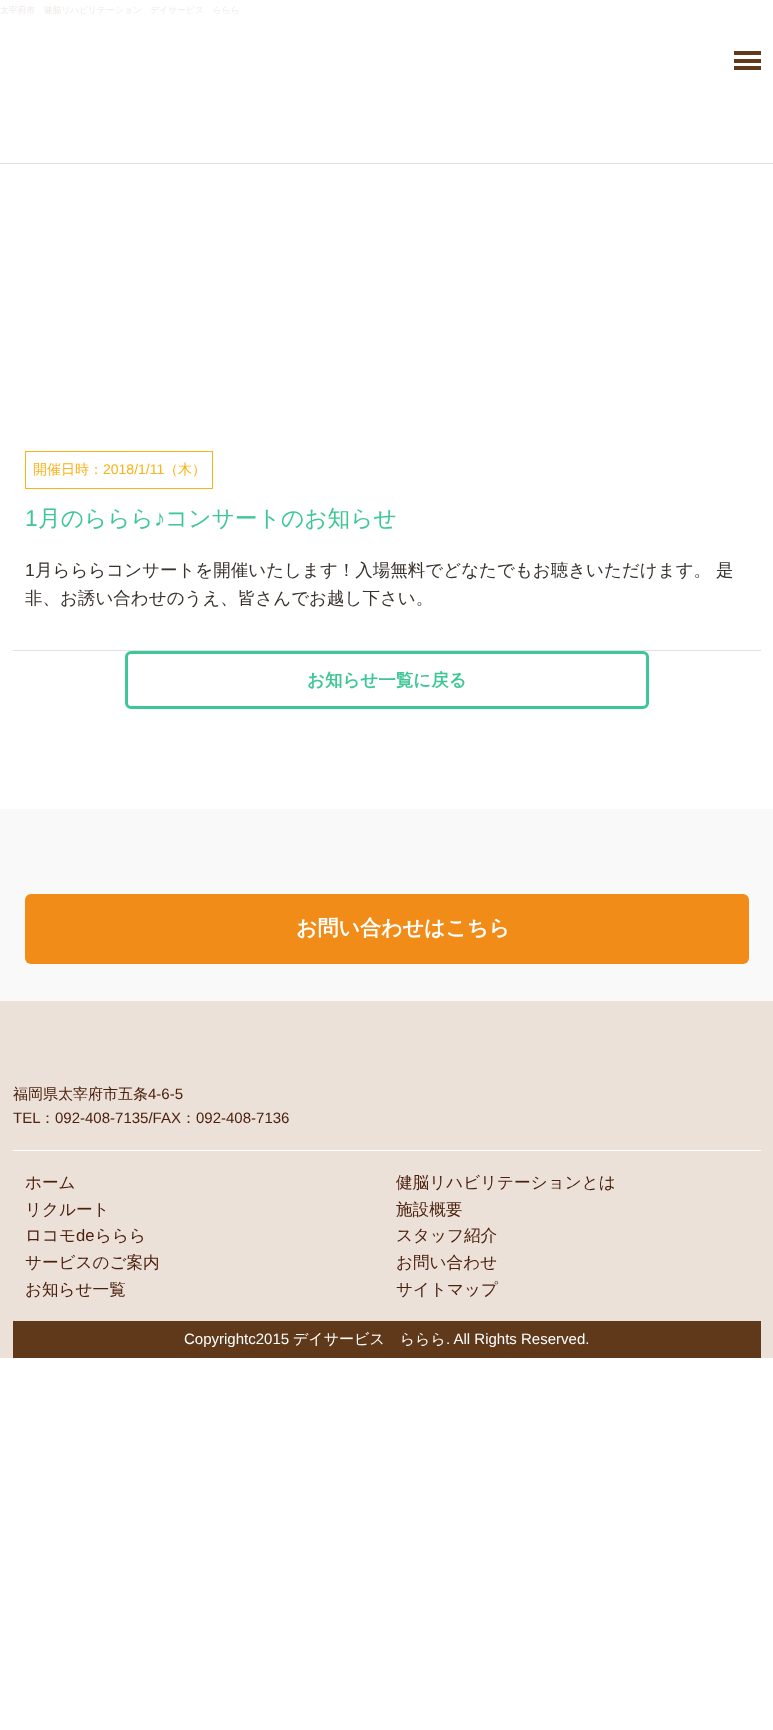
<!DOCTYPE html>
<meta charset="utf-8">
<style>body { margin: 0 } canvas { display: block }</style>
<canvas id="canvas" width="773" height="1730"></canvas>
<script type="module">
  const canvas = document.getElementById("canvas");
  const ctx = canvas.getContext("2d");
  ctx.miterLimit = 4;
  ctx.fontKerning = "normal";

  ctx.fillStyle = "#ffffff";
  ctx.fillRect(0, 0, 773, 1730);
  ctx.font = "500 8.75px WenQuanYi Zen Hei";
  ctx.fillStyle = "#eee9e7";
  ctx.fillText("太宰府市　健脳リハビリテーション　デイサービス　ららら", 0, 13);
  ctx.fillStyle = "#e1e1e1";
  ctx.fillRect(0, 163, 773, 1);
  ctx.fillRect(13, 650, 748, 1);
  ctx.strokeStyle = "#f9b218";
  ctx.strokeRect(25.5, 451.5, 187, 37);
  ctx.font = "500 14px WenQuanYi Zen Hei";
  ctx.fillStyle = "#f9b218";
  ctx.fillText("開催日時：", 33, 474);
  ctx.font = "14px Liberation Sans";
  ctx.fillText("2018/1/11", 103, 474);
  ctx.font = "500 14px WenQuanYi Zen Hei";
  ctx.fillText("（木）", 164, 474);
  ctx.font = "22.75px Liberation Sans";
  ctx.fillStyle = "#3ec796";
  ctx.fillText("1", 25, 526);
  ctx.font = "500 22.75px WenQuanYi Zen Hei";
  ctx.fillText("月のららら", 38, 526);
  ctx.font = "22.75px Liberation Sans";
  ctx.fillText("♪", 154, 526);
  ctx.font = "500 22.75px WenQuanYi Zen Hei";
  ctx.fillText("コンサートのお知らせ", 165, 526);
  ctx.font = "17.5px Liberation Sans";
  ctx.fillStyle = "#39312c";
  ctx.fillText("1", 25, 576);
  ctx.font = "500 17.5px WenQuanYi Zen Hei";
  ctx.fillText("月らららコンサートを開催いたします！入場無料でどなたでもお聴きいただけます。", 35, 576);
  ctx.fillText("是", 716, 576);
  ctx.fillText("非、お誘い合わせのうえ、皆さんでお越し下さい。", 25, 604);
  ctx.beginPath();
  ctx.roundRect(126.5, 652.5, 521, 55, 4.5);
  ctx.strokeStyle = "#3ec796";
  ctx.lineWidth = 3;
  ctx.stroke();
  ctx.font = "bold 17.5px WenQuanYi Zen Hei";
  ctx.fillStyle = "#3ec796";
  ctx.fillText("お知らせ一覧に戻る", 307, 686);
  ctx.fillStyle = "#f9f9f9";
  ctx.fillRect(0, 809, 773, 192);
  ctx.fillStyle = "#f08c17";
  ctx.beginPath();
  ctx.roundRect(25, 894, 724, 70, 6);
  ctx.fill();
  ctx.font = "bold 21px WenQuanYi Zen Hei";
  ctx.fillStyle = "#ffffff";
  ctx.fillText("お問い合わせはこちら", 296, 935);
  ctx.fillStyle = "#ece1d9";
  ctx.fillRect(0, 1001, 773, 357);
  ctx.font = "500 15px WenQuanYi Zen Hei";
  ctx.fillStyle = "#4b200d";
  ctx.fillText("福岡県太宰府市五条", 13, 1099);
  ctx.font = "15px Liberation Sans";
  ctx.fillText("4-6-5", 148, 1099);
  ctx.fillText("TEL", 13, 1123);
  ctx.font = "500 15px WenQuanYi Zen Hei";
  ctx.fillText("：", 40, 1123);
  ctx.font = "15px Liberation Sans";
  ctx.fillText("092-408-7135/FAX", 55, 1123);
  ctx.font = "500 15px WenQuanYi Zen Hei";
  ctx.fillText("：", 181, 1123);
  ctx.font = "15px Liberation Sans";
  ctx.fillText("092-408-7136", 196, 1123);
  ctx.fillStyle = "#ffffff";
  ctx.fillRect(13, 1150, 748, 1);
  ctx.font = "500 16.6px WenQuanYi Zen Hei";
  ctx.fillStyle = "#4b200d";
  ctx.fillText("ホーム", 25, 1188);
  ctx.fillText("健脳リハビリテーションとは", 396, 1188);
  ctx.fillText("リクルート", 25, 1215);
  ctx.fillText("施設概要", 396, 1215);
  ctx.fillText("ロコモ", 25, 1241);
  ctx.font = "16.6px Liberation Sans";
  ctx.fillText("de", 76, 1241);
  ctx.font = "500 16.6px WenQuanYi Zen Hei";
  ctx.fillText("ららら", 95, 1241);
  ctx.fillText("スタッフ紹介", 396, 1241);
  ctx.fillText("サービスのご案内", 25, 1268);
  ctx.fillText("お問い合わせ", 396, 1268);
  ctx.fillText("お知らせ一覧", 25, 1295);
  ctx.fillText("サイトマップ", 396, 1295);
  ctx.fillStyle = "#5f391a";
  ctx.fillRect(13, 1321, 748, 37);
  ctx.font = "15px Liberation Sans";
  ctx.fillStyle = "#ffffff";
  ctx.fillText("Copyrightc2015", 184, 1344);
  ctx.font = "500 15px WenQuanYi Zen Hei";
  ctx.fillText("デイサービス　ららら", 293, 1344);
  ctx.font = "15px Liberation Sans";
  ctx.fillText(". All Rights Reserved.", 446, 1344);
  ctx.fillStyle = "#5f391a";
  ctx.fillRect(734, 51, 27, 4);
  ctx.fillRect(734, 59, 27, 4);
  ctx.fillRect(734, 66, 27, 4);
</script>
